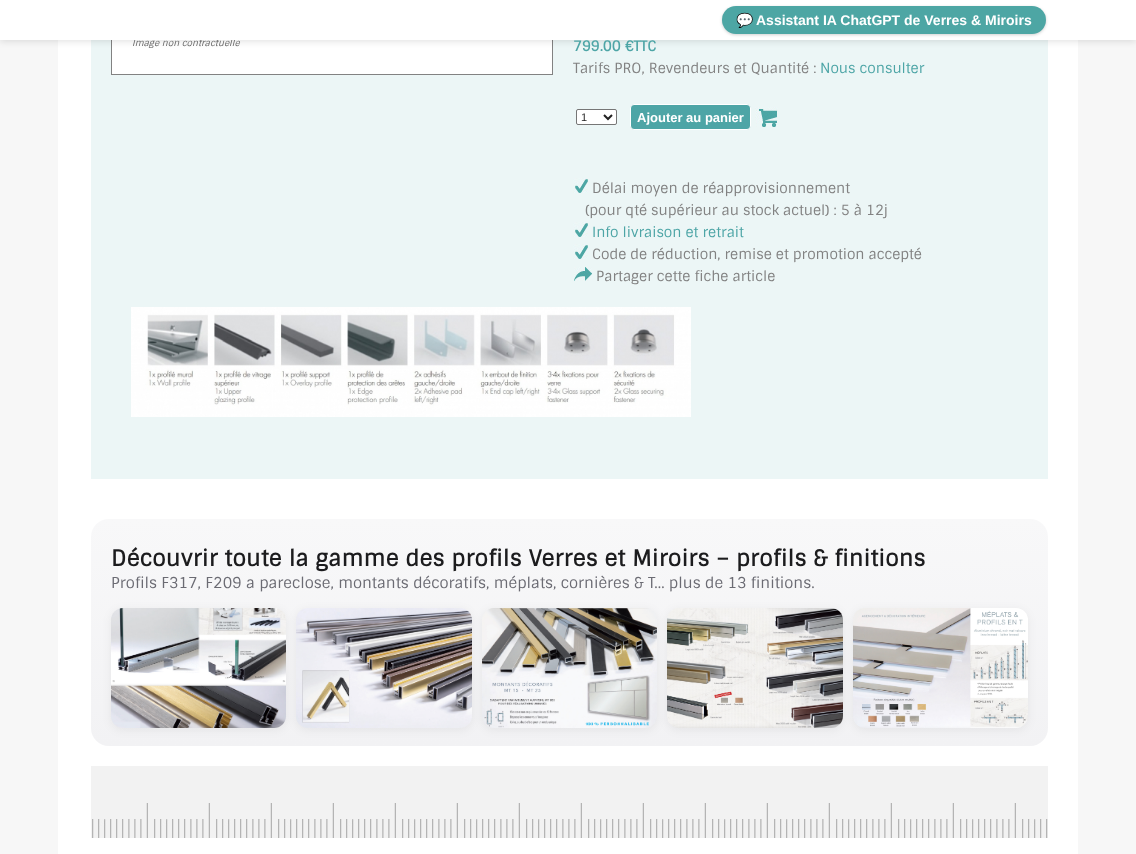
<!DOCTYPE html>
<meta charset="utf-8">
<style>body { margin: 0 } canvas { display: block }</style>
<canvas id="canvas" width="1136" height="854"></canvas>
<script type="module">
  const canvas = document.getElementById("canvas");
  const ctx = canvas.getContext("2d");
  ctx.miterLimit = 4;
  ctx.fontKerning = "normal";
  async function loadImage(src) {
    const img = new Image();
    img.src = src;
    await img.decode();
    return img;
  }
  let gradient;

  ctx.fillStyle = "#f7f7f7";
  ctx.fillRect(0, 0, 1136, 854);
  ctx.fillStyle = "#ffffff";
  ctx.fillRect(58, 40, 1020, 814);
  ctx.fillStyle = "#ecf6f6";
  ctx.fillRect(91, 40, 957, 439);
  ctx.fillStyle = "#ffffff";
  ctx.fillRect(112, 40, 440, 34);
  ctx.strokeStyle = "#828282";
  ctx.strokeRect(111.5, -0.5, 441, 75);
  ctx.fillStyle = "rgba(0, 0, 0, 0.1)";
  ctx.filter = "blur(3px)";
  ctx.beginPath();
  ctx.rect(0, 2, 1136, 40);
  ctx.fill();
  ctx.filter = "none";
  ctx.font = "italic 9px Sintony";
  ctx.fillStyle = "#666666";
  ctx.fillText("Image non contractuelle", 132, 46);
  ctx.fillStyle = "#ffffff";
  ctx.fillRect(0, 0, 1136, 40);
  ctx.fillStyle = "rgba(0, 0, 0, 0.18)";
  ctx.filter = "blur(1.5px)";
  ctx.beginPath();
  ctx.roundRect(722, 7, 324, 28, 14);
  ctx.fill();
  ctx.filter = "none";
  ctx.fillStyle = "#4da6a4";
  ctx.beginPath();
  ctx.roundRect(722, 6, 324, 28, 14);
  ctx.fill();
  ctx.font = "bold 14px Noto Color Emoji";
  ctx.fillStyle = "#ffffff";
  ctx.fillText("💬", 736, 25);
  ctx.font = "bold 14px Liberation Sans";
  ctx.fillText("Assistant IA ChatGPT de Verres & Miroirs", 756, 25);
  ctx.font = "bold 14px Sintony";
  ctx.fillStyle = "#4da5a6";
  ctx.fillText("799.00 €TTC", 573, 51);
  ctx.font = "14px Sintony";
  ctx.fillStyle = "#828282";
  ctx.fillText("Tarifs PRO, Revendeurs et Quantité :", 573, 73);
  ctx.fillStyle = "#4da5a6";
  ctx.fillText("Nous consulter", 820, 73);
  ctx.fillStyle = "#ffffff";
  ctx.beginPath();
  ctx.roundRect(576.5, 109.5, 40, 15, 1.5);
  ctx.fill();
  ctx.strokeStyle = "#767676";
  ctx.stroke();
  ctx.beginPath();
  ctx.moveTo(604, 115);
  ctx.lineTo(608, 119);
  ctx.lineTo(612, 115);
  ctx.strokeStyle = "#222222";
  ctx.lineWidth = 2;
  ctx.stroke();
  ctx.font = "11px Liberation Sans";
  ctx.fillStyle = "#222222";
  ctx.fillText("1", 581, 121);
  ctx.fillStyle = "#4da5a6";
  ctx.beginPath();
  ctx.roundRect(630.5, 104.5, 120, 25, 3.5);
  ctx.fill();
  ctx.strokeStyle = "#ffffff";
  ctx.lineWidth = 1;
  ctx.stroke();
  ctx.font = "bold 13px Liberation Sans";
  ctx.fillStyle = "#ffffff";
  ctx.fillText("Ajouter au panier", 637, 122);
  ctx.drawImage(await loadImage("img1.png"), 755, 107, 23, 20);
  ctx.drawImage(await loadImage("img2.png"), 573, 178, 15, 15);
  ctx.font = "14px Sintony";
  ctx.fillStyle = "#828282";
  ctx.fillText("Délai moyen de réapprovisionnement", 592, 193);
  ctx.fillText("(pour qté supérieur au stock actuel) : 5 à 12j", 585, 215);
  ctx.drawImage(await loadImage("img2.png"), 573, 222, 15, 15);
  ctx.fillStyle = "#4da5a6";
  ctx.fillText("Info livraison et retrait", 592, 237);
  ctx.drawImage(await loadImage("img2.png"), 573, 244, 15, 15);
  ctx.fillStyle = "#828282";
  ctx.fillText("Code de réduction, remise et promotion accepté", 592, 259);
  ctx.drawImage(await loadImage("img3.png"), 574, 267, 18, 14);
  ctx.fillText("Partager cette fiche article", 596, 281);
  ctx.drawImage(await loadImage("img4.png"), 131, 307, 560, 110);
  gradient = ctx.createLinearGradient(570, 519, 570, 746);
  gradient.addColorStop(0, "#f8f8f9");
  gradient.addColorStop(1, "#f2f2f4");
  ctx.fillStyle = gradient;
  ctx.beginPath();
  ctx.roundRect(91, 519, 957, 227, 18);
  ctx.fill();
  ctx.letterSpacing = "0.33px";
  ctx.font = "bold 22px Sintony";
  ctx.fillStyle = "#1c1c1e";
  ctx.fillText("Découvrir toute la gamme des profils Verres et Miroirs – profils & finitions", 111, 566);
  ctx.letterSpacing = "0px";
  ctx.font = "15px Sintony";
  ctx.fillStyle = "#6b6b73";
  ctx.fillText("Profils F317, F209 a pareclose, montants décoratifs, méplats, cornières & T… plus de 13 finitions.", 111, 588);
  ctx.fillStyle = "rgba(0, 0, 0, 0.06)";
  ctx.filter = "blur(5px)";
  ctx.beginPath();
  ctx.roundRect(111, 610, 175, 120, 12);
  ctx.fill();
  ctx.filter = "none";
  ctx.drawImage(await loadImage("img5.png"), 111, 608, 175, 120);
  ctx.filter = "blur(5px)";
  ctx.beginPath();
  ctx.roundRect(296, 610, 176, 120, 12);
  ctx.fill();
  ctx.filter = "none";
  ctx.drawImage(await loadImage("img6.png"), 296, 608, 176, 120);
  ctx.filter = "blur(5px)";
  ctx.beginPath();
  ctx.roundRect(482, 610, 175, 120, 12);
  ctx.fill();
  ctx.filter = "none";
  ctx.drawImage(await loadImage("img7.png"), 482, 608, 175, 120);
  ctx.filter = "blur(5px)";
  ctx.beginPath();
  ctx.roundRect(667, 610, 176, 120, 12);
  ctx.fill();
  ctx.filter = "none";
  ctx.drawImage(await loadImage("img8.png"), 667, 608, 176, 120);
  ctx.filter = "blur(5px)";
  ctx.beginPath();
  ctx.roundRect(853, 610, 175, 120, 12);
  ctx.fill();
  ctx.filter = "none";
  ctx.drawImage(await loadImage("img9.png"), 853, 608, 175, 120);
  ctx.fillStyle = "#f2f2f2";
  ctx.fillRect(91, 766, 957, 72);
  ctx.drawImage(await loadImage("img10.png"), 92, 803, 956, 35);
</script>
